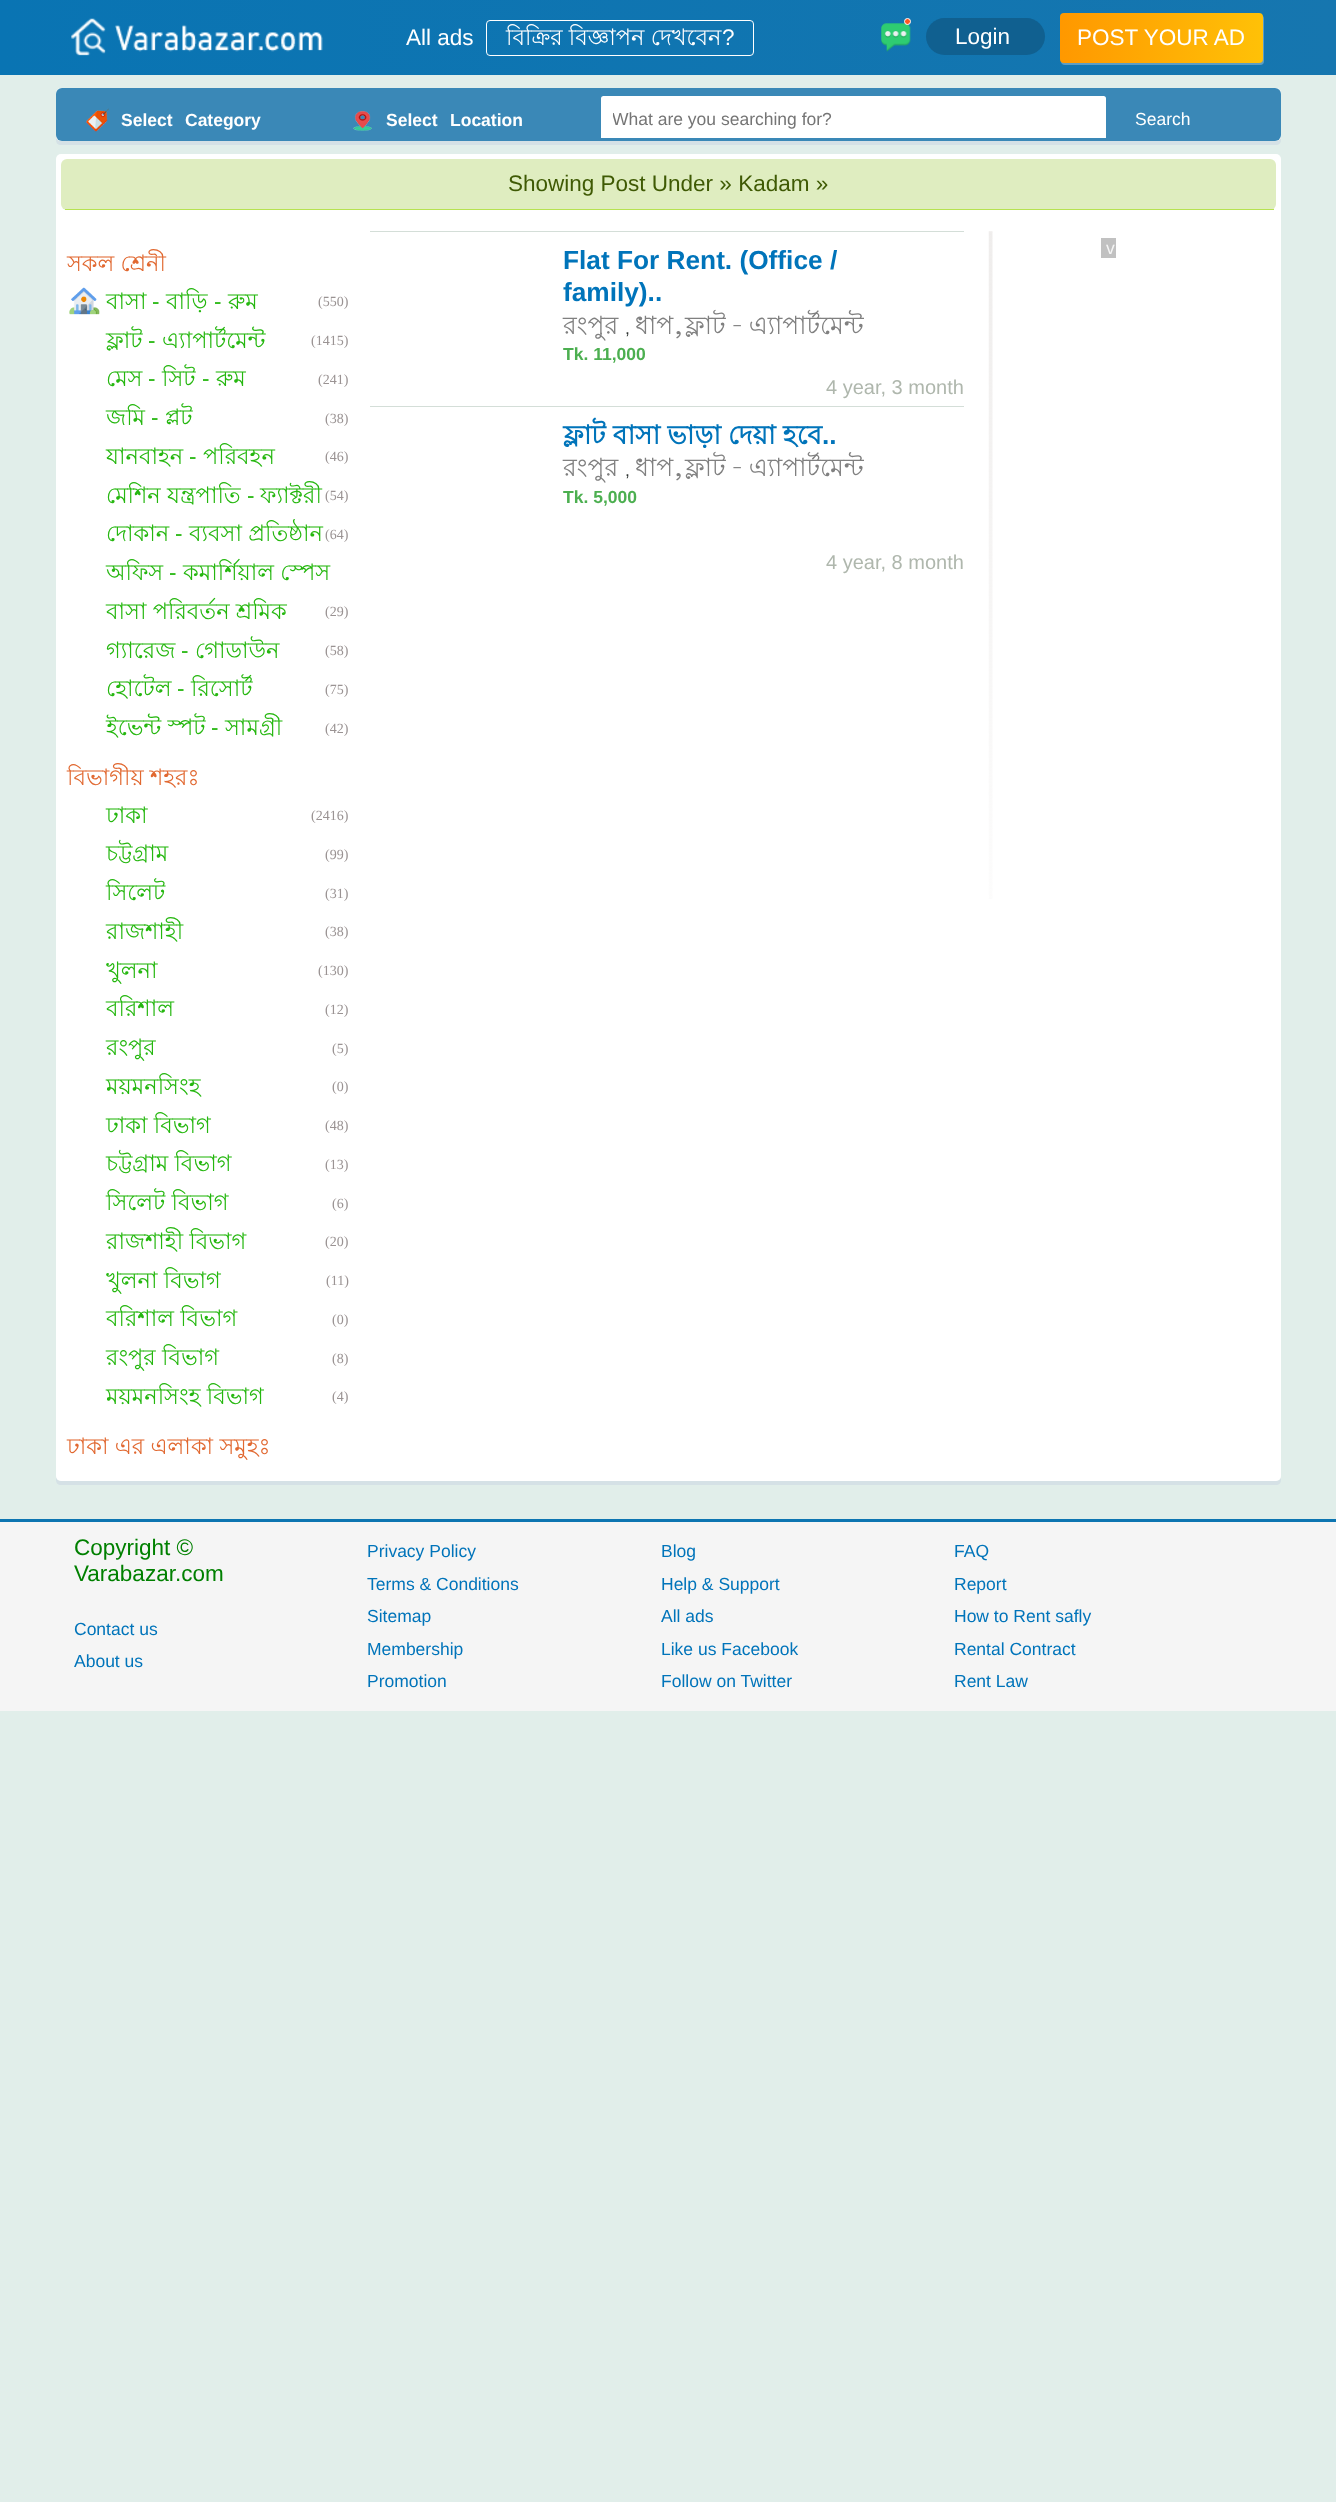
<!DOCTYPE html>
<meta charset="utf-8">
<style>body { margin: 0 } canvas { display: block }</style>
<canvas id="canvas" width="1336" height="2502"></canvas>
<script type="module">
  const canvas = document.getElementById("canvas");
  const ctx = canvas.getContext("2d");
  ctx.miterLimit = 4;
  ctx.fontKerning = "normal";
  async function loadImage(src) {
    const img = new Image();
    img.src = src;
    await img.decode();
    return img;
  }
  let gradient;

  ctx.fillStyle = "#e1eeea";
  ctx.fillRect(0, 0, 1336, 2502);
  gradient = ctx.createLinearGradient(0, 38, 1336, 37);
  gradient.addColorStop(0, "#0974b3");
  gradient.addColorStop(1, "#1676af");
  ctx.fillStyle = gradient;
  ctx.fillRect(0, 0, 1336, 75);
  ctx.drawImage(await loadImage("img1.png"), 71, 18, 252, 38);
  ctx.font = "22.5px Liberation Sans";
  ctx.fillStyle = "#ffffff";
  ctx.fillText("All ads", 406, 45);
  ctx.beginPath();
  ctx.roundRect(486.5, 20.5, 267, 35, 3.5);
  ctx.strokeStyle = "#ffffff";
  ctx.stroke();
  ctx.font = "22.5px Lohit Bengali";
  ctx.fillText("বিক্রির বিজ্ঞাপন দেখবেন", 506, 45);
  ctx.font = "22.5px Liberation Sans";
  ctx.fillText("?", 722, 45);
  ctx.drawImage(await loadImage("img2.png"), 881, 23, 30, 29);
  ctx.fillStyle = "#ff5722";
  ctx.beginPath();
  ctx.arc(907.5, 21.5, 3, 0, Math.PI * 2);
  ctx.fill();
  ctx.stroke();
  ctx.fillStyle = "#106090";
  ctx.beginPath();
  ctx.roundRect(926, 18, 119, 37, 18.5);
  ctx.fill();
  ctx.fillStyle = "#ffffff";
  ctx.fillText("Login", 955, 44);
  ctx.fillStyle = "rgba(234, 234, 234, 0.34)";
  ctx.filter = "blur(0.5px)";
  ctx.beginPath();
  ctx.roundRect(1061, 15, 203, 50, 4);
  ctx.fill();
  ctx.filter = "none";
  gradient = ctx.createLinearGradient(1263, 38, 1060, 37);
  gradient.addColorStop(0, "#ffc107");
  gradient.addColorStop(1, "#ff9800");
  ctx.fillStyle = gradient;
  ctx.beginPath();
  ctx.roundRect(1060, 13, 203, 50, 4);
  ctx.fill();
  ctx.fillStyle = "#ffffff";
  ctx.fillText("POST YOUR AD", 1077, 45);
  ctx.fillStyle = "#d5e1e6";
  ctx.beginPath();
  ctx.moveTo(56, 94);
  ctx.lineTo(56, 140);
  ctx.bezierCurveTo(56, 143, 58, 145, 61, 145);
  ctx.lineTo(1276, 145);
  ctx.bezierCurveTo(1279, 145, 1281, 143, 1281, 140);
  ctx.lineTo(1281, 138);
  ctx.bezierCurveTo(1280, 140, 1278, 141, 1276, 141);
  ctx.lineTo(61, 141);
  ctx.bezierCurveTo(58, 141, 56, 139, 56, 136);
  ctx.closePath();
  ctx.fill();
  ctx.fillStyle = "#ffffff";
  ctx.beginPath();
  ctx.roundRect(56, 88, 1225, 53, 5);
  ctx.fill();
  ctx.fillStyle = "#3a88b7";
  ctx.beginPath();
  ctx.roundRect(56, 88, 1225, 53, 6);
  ctx.fill();
  ctx.drawImage(await loadImage("img3.png"), 86, 108, 23, 24);
  ctx.font = "bold 17.5px Liberation Sans";
  ctx.fillStyle = "#ffffff";
  ctx.fillText("Select", 121, 126);
  ctx.fillText("Category", 185, 126);
  ctx.drawImage(await loadImage("img4.png"), 353, 111, 19, 20);
  ctx.fillText("Select", 386, 126);
  ctx.fillText("Location", 450, 126);
  ctx.beginPath();
  ctx.roundRect(601, 96, 505, 42, [2.5, 2.5, 0, 0]);
  ctx.fill();
  ctx.save();
  ctx.beginPath();
  ctx.rect(613, 109, 487, 20);
  ctx.clip();
  ctx.font = "17.5px Liberation Sans";
  ctx.fillStyle = "#757575";
  ctx.fillText("What are you searching for?", 612, 125);
  ctx.restore();
  ctx.font = "17.5px Liberation Sans";
  ctx.fillText("Search", 1135, 125);
  ctx.fillStyle = "#d5e1e6";
  ctx.beginPath();
  ctx.moveTo(56, 161);
  ctx.lineTo(56, 1480);
  ctx.bezierCurveTo(56, 1483, 58, 1485, 61, 1485);
  ctx.lineTo(1276, 1485);
  ctx.bezierCurveTo(1279, 1485, 1281, 1483, 1281, 1480);
  ctx.lineTo(1281, 1478);
  ctx.bezierCurveTo(1280, 1480, 1278, 1481, 1276, 1481);
  ctx.lineTo(61, 1481);
  ctx.bezierCurveTo(58, 1481, 56, 1479, 56, 1476);
  ctx.closePath();
  ctx.fill();
  ctx.fillStyle = "#ffffff";
  ctx.beginPath();
  ctx.roundRect(56, 154, 1225, 1327, 5);
  ctx.fill();
  ctx.fillStyle = "#dfedc0";
  ctx.beginPath();
  ctx.roundRect(61, 159, 1215, 51, 6);
  ctx.fill();
  ctx.fillStyle = "#b6e251";
  ctx.fillRect(65, 209, 1209, 1);
  ctx.font = "22.5px Liberation Sans";
  ctx.fillStyle = "#3f5a04";
  ctx.fillText("Showing Post Under » Kadam »", 508, 191);
  ctx.font = "22.5px Lohit Bengali";
  ctx.fillStyle = "#e16830";
  ctx.fillText("সকল শ্রেনী", 67, 271);
  ctx.drawImage(await loadImage("img5.png"), 69, 287, 31, 28);
  ctx.fillStyle = "#25b70f";
  ctx.fillText("বাসা", 106, 309);
  ctx.font = "22.5px Liberation Sans";
  ctx.fillText("-", 152, 309);
  ctx.font = "22.5px Lohit Bengali";
  ctx.fillText("বাড়ি", 166, 309);
  ctx.font = "22.5px Liberation Sans";
  ctx.fillText("-", 214, 309);
  ctx.font = "22.5px Lohit Bengali";
  ctx.fillText("রুম", 228, 309);
  ctx.font = "14px Liberation Serif";
  ctx.fillStyle = "#9a9393";
  ctx.fillText("(550)", 318, 306);
  ctx.font = "22.5px Lohit Bengali";
  ctx.fillStyle = "#25b70f";
  ctx.fillText("ফ্লাট", 106, 348);
  ctx.font = "22.5px Liberation Sans";
  ctx.fillText("-", 148, 348);
  ctx.font = "22.5px Lohit Bengali";
  ctx.fillText("এ্যাপার্টমেন্ট", 162, 348);
  ctx.font = "14px Liberation Serif";
  ctx.fillStyle = "#9a9393";
  ctx.fillText("(1415)", 311, 345);
  ctx.font = "22.5px Lohit Bengali";
  ctx.fillStyle = "#25b70f";
  ctx.fillText("মেস", 106, 386);
  ctx.font = "22.5px Liberation Sans";
  ctx.fillText("-", 148, 386);
  ctx.font = "22.5px Lohit Bengali";
  ctx.fillText("সিট", 162, 386);
  ctx.font = "22.5px Liberation Sans";
  ctx.fillText("-", 202, 386);
  ctx.font = "22.5px Lohit Bengali";
  ctx.fillText("রুম", 216, 386);
  ctx.font = "14px Liberation Serif";
  ctx.fillStyle = "#9a9393";
  ctx.fillText("(241)", 318, 384);
  ctx.font = "22.5px Lohit Bengali";
  ctx.fillStyle = "#25b70f";
  ctx.fillText("জমি", 106, 425);
  ctx.font = "22.5px Liberation Sans";
  ctx.fillText("-", 151, 425);
  ctx.font = "22.5px Lohit Bengali";
  ctx.fillText("প্লট", 165, 425);
  ctx.font = "14px Liberation Serif";
  ctx.fillStyle = "#9a9393";
  ctx.fillText("(38)", 325, 423);
  ctx.font = "22.5px Lohit Bengali";
  ctx.fillStyle = "#25b70f";
  ctx.fillText("যানবাহন", 106, 464);
  ctx.font = "22.5px Liberation Sans";
  ctx.fillText("-", 189, 464);
  ctx.font = "22.5px Lohit Bengali";
  ctx.fillText("পরিবহন", 203, 464);
  ctx.font = "14px Liberation Serif";
  ctx.fillStyle = "#9a9393";
  ctx.fillText("(46)", 325, 461);
  ctx.font = "22.5px Lohit Bengali";
  ctx.fillStyle = "#25b70f";
  ctx.fillText("মেশিন যন্ত্রপাতি", 106, 503);
  ctx.font = "22.5px Liberation Sans";
  ctx.fillText("-", 247, 503);
  ctx.font = "22.5px Lohit Bengali";
  ctx.fillText("ফ্যাক্টরী", 260, 503);
  ctx.font = "14px Liberation Serif";
  ctx.fillStyle = "#9a9393";
  ctx.fillText("(54)", 325, 500);
  ctx.font = "22.5px Lohit Bengali";
  ctx.fillStyle = "#25b70f";
  ctx.fillText("দোকান", 106, 541);
  ctx.font = "22.5px Liberation Sans";
  ctx.fillText("-", 175, 541);
  ctx.font = "22.5px Lohit Bengali";
  ctx.fillText("ব্যবসা প্রতিষ্ঠান", 189, 541);
  ctx.font = "14px Liberation Serif";
  ctx.fillStyle = "#9a9393";
  ctx.fillText("(64)", 325, 539);
  ctx.font = "22.5px Lohit Bengali";
  ctx.fillStyle = "#25b70f";
  ctx.fillText("অফিস", 106, 580);
  ctx.font = "22.5px Liberation Sans";
  ctx.fillText("-", 169, 580);
  ctx.font = "22.5px Lohit Bengali";
  ctx.fillText("কমার্শিয়াল স্পেস", 183, 580);
  ctx.fillText("বাসা পরিবর্তন শ্রমিক", 106, 619);
  ctx.font = "14px Liberation Serif";
  ctx.fillStyle = "#9a9393";
  ctx.fillText("(29)", 325, 616);
  ctx.font = "22.5px Lohit Bengali";
  ctx.fillStyle = "#25b70f";
  ctx.fillText("গ্যারেজ", 106, 658);
  ctx.font = "22.5px Liberation Sans";
  ctx.fillText("-", 181, 658);
  ctx.font = "22.5px Lohit Bengali";
  ctx.fillText("গোডাউন", 195, 658);
  ctx.font = "14px Liberation Serif";
  ctx.fillStyle = "#9a9393";
  ctx.fillText("(58)", 325, 655);
  ctx.font = "22.5px Lohit Bengali";
  ctx.fillStyle = "#25b70f";
  ctx.fillText("হোটেল", 106, 696);
  ctx.font = "22.5px Liberation Sans";
  ctx.fillText("-", 177, 696);
  ctx.font = "22.5px Lohit Bengali";
  ctx.fillText("রিসোর্ট", 191, 696);
  ctx.font = "14px Liberation Serif";
  ctx.fillStyle = "#9a9393";
  ctx.fillText("(75)", 325, 694);
  ctx.font = "22.5px Lohit Bengali";
  ctx.fillStyle = "#25b70f";
  ctx.fillText("ইভেন্ট স্পট", 106, 735);
  ctx.font = "22.5px Liberation Sans";
  ctx.fillText("-", 211, 735);
  ctx.font = "22.5px Lohit Bengali";
  ctx.fillText("সামগ্রী", 225, 735);
  ctx.font = "14px Liberation Serif";
  ctx.fillStyle = "#9a9393";
  ctx.fillText("(42)", 325, 733);
  ctx.font = "22.5px Lohit Bengali";
  ctx.fillStyle = "#e16830";
  ctx.fillText("বিভাগীয় শহরঃ", 67, 785);
  ctx.fillStyle = "#25b70f";
  ctx.fillText("ঢাকা", 106, 823);
  ctx.font = "14px Liberation Serif";
  ctx.fillStyle = "#9a9393";
  ctx.fillText("(2416)", 311, 820);
  ctx.font = "22.5px Lohit Bengali";
  ctx.fillStyle = "#25b70f";
  ctx.fillText("চট্টগ্রাম", 106, 861);
  ctx.font = "14px Liberation Serif";
  ctx.fillStyle = "#9a9393";
  ctx.fillText("(99)", 325, 859);
  ctx.font = "22.5px Lohit Bengali";
  ctx.fillStyle = "#25b70f";
  ctx.fillText("সিলেট", 106, 900);
  ctx.font = "14px Liberation Serif";
  ctx.fillStyle = "#9a9393";
  ctx.fillText("(31)", 325, 898);
  ctx.font = "22.5px Lohit Bengali";
  ctx.fillStyle = "#25b70f";
  ctx.fillText("রাজশাহী", 106, 939);
  ctx.font = "14px Liberation Serif";
  ctx.fillStyle = "#9a9393";
  ctx.fillText("(38)", 325, 936);
  ctx.font = "22.5px Lohit Bengali";
  ctx.fillStyle = "#25b70f";
  ctx.fillText("খুলনা", 106, 978);
  ctx.font = "14px Liberation Serif";
  ctx.fillStyle = "#9a9393";
  ctx.fillText("(130)", 318, 975);
  ctx.font = "22.5px Lohit Bengali";
  ctx.fillStyle = "#25b70f";
  ctx.fillText("বরিশাল", 106, 1016);
  ctx.font = "14px Liberation Serif";
  ctx.fillStyle = "#9a9393";
  ctx.fillText("(12)", 325, 1014);
  ctx.font = "22.5px Lohit Bengali";
  ctx.fillStyle = "#25b70f";
  ctx.fillText("রংপুর", 106, 1055);
  ctx.font = "14px Liberation Serif";
  ctx.fillStyle = "#9a9393";
  ctx.fillText("(5)", 332, 1053);
  ctx.font = "22.5px Lohit Bengali";
  ctx.fillStyle = "#25b70f";
  ctx.fillText("ময়মনসিংহ", 106, 1094);
  ctx.font = "14px Liberation Serif";
  ctx.fillStyle = "#9a9393";
  ctx.fillText("(0)", 332, 1091);
  ctx.font = "22.5px Lohit Bengali";
  ctx.fillStyle = "#25b70f";
  ctx.fillText("ঢাকা বিভাগ", 106, 1133);
  ctx.font = "14px Liberation Serif";
  ctx.fillStyle = "#9a9393";
  ctx.fillText("(48)", 325, 1130);
  ctx.font = "22.5px Lohit Bengali";
  ctx.fillStyle = "#25b70f";
  ctx.fillText("চট্টগ্রাম বিভাগ", 106, 1171);
  ctx.font = "14px Liberation Serif";
  ctx.fillStyle = "#9a9393";
  ctx.fillText("(13)", 325, 1169);
  ctx.font = "22.5px Lohit Bengali";
  ctx.fillStyle = "#25b70f";
  ctx.fillText("সিলেট বিভাগ", 106, 1210);
  ctx.font = "14px Liberation Serif";
  ctx.fillStyle = "#9a9393";
  ctx.fillText("(6)", 332, 1208);
  ctx.font = "22.5px Lohit Bengali";
  ctx.fillStyle = "#25b70f";
  ctx.fillText("রাজশাহী বিভাগ", 106, 1249);
  ctx.font = "14px Liberation Serif";
  ctx.fillStyle = "#9a9393";
  ctx.fillText("(20)", 325, 1246);
  ctx.font = "22.5px Lohit Bengali";
  ctx.fillStyle = "#25b70f";
  ctx.fillText("খুলনা বিভাগ", 106, 1288);
  ctx.font = "14px Liberation Serif";
  ctx.fillStyle = "#9a9393";
  ctx.fillText("(11)", 326, 1285);
  ctx.font = "22.5px Lohit Bengali";
  ctx.fillStyle = "#25b70f";
  ctx.fillText("বরিশাল বিভাগ", 106, 1326);
  ctx.font = "14px Liberation Serif";
  ctx.fillStyle = "#9a9393";
  ctx.fillText("(0)", 332, 1324);
  ctx.font = "22.5px Lohit Bengali";
  ctx.fillStyle = "#25b70f";
  ctx.fillText("রংপুর বিভাগ", 106, 1365);
  ctx.font = "14px Liberation Serif";
  ctx.fillStyle = "#9a9393";
  ctx.fillText("(8)", 332, 1363);
  ctx.font = "22.5px Lohit Bengali";
  ctx.fillStyle = "#25b70f";
  ctx.fillText("ময়মনসিংহ বিভাগ", 106, 1404);
  ctx.font = "14px Liberation Serif";
  ctx.fillStyle = "#9a9393";
  ctx.fillText("(4)", 332, 1401);
  ctx.font = "22.5px Lohit Bengali";
  ctx.fillStyle = "#e16830";
  ctx.fillText("ঢাকা এর এলাকা সমুহঃ", 67, 1454);
  ctx.fillStyle = "#d4ded8";
  ctx.fillRect(370, 231, 594, 1);
  ctx.font = "bold 26.25px Liberation Sans";
  ctx.fillStyle = "#0074ba";
  ctx.fillText("Flat For Rent. (Office /", 563, 269);
  ctx.fillText("family)..", 563, 301);
  ctx.font = "25px Lohit Bengali";
  ctx.fillStyle = "#808080";
  ctx.fillText("রংপুর", 563, 334);
  ctx.font = "17.5px Liberation Sans";
  ctx.fillStyle = "#2f3432";
  ctx.fillText(",", 625, 334);
  ctx.font = "25px Lohit Bengali";
  ctx.fillStyle = "#808080";
  ctx.fillText("ধাপ,", 635, 334);
  ctx.wordSpacing = "-2px";
  ctx.fillText("ফ্লাট - এ্যাপার্টমেন্ট", 685, 334);
  ctx.wordSpacing = "0px";
  ctx.font = "bold 17.5px Liberation Sans";
  ctx.fillStyle = "#4caf50";
  ctx.fillText("Tk. 11,000", 563, 360);
  ctx.font = "20px Liberation Sans";
  ctx.fillStyle = "#afb7ad";
  ctx.fillText("4 year, 3 month", 826, 394);
  ctx.fillStyle = "#d4ded8";
  ctx.fillRect(370, 406, 594, 1);
  ctx.font = "bold 26.25px Lohit Bengali";
  ctx.fillStyle = "#0074ba";
  ctx.fillText("ফ্লাট বাসা ভাড়া দেয়া হবে", 563, 444);
  ctx.font = "bold 26.25px Liberation Sans";
  ctx.fillText("..", 822, 444);
  ctx.font = "25px Lohit Bengali";
  ctx.fillStyle = "#808080";
  ctx.fillText("রংপুর", 563, 476);
  ctx.font = "17.5px Liberation Sans";
  ctx.fillStyle = "#2f3432";
  ctx.fillText(",", 625, 476);
  ctx.font = "25px Lohit Bengali";
  ctx.fillStyle = "#808080";
  ctx.fillText("ধাপ,", 635, 476);
  ctx.wordSpacing = "-2px";
  ctx.fillText("ফ্লাট - এ্যাপার্টমেন্ট", 685, 476);
  ctx.wordSpacing = "0px";
  ctx.font = "bold 17.5px Liberation Sans";
  ctx.fillStyle = "#4caf50";
  ctx.fillText("Tk. 5,000", 563, 503);
  ctx.font = "20px Liberation Sans";
  ctx.fillStyle = "#afb7ad";
  ctx.fillText("4 year, 8 month", 826, 569);
  ctx.drawImage(await loadImage("img6.png"), 988, 231, 5, 668);
  ctx.fillStyle = "#c1c1c1";
  ctx.fillRect(1101, 238, 15, 20);
  ctx.font = "17.5px Liberation Sans";
  ctx.fillStyle = "#f5f5f5";
  ctx.fillText("v", 1106, 254);
  ctx.fillRect(0, 1522, 1336, 189);
  ctx.fillStyle = "#0d75b1";
  ctx.fillRect(0, 1519, 1336, 3);
  ctx.font = "22.5px Liberation Sans";
  ctx.fillStyle = "#008000";
  ctx.fillText("Copyright ©", 74, 1555);
  ctx.fillText("Varabazar.com", 74, 1581);
  ctx.font = "17.5px Liberation Sans";
  ctx.fillStyle = "#0074ba";
  ctx.fillText("Contact us", 74, 1635);
  ctx.fillText("About us", 74, 1667);
  ctx.fillText("Privacy Policy", 367, 1557);
  ctx.fillText("Terms & Conditions", 367, 1590);
  ctx.fillText("Sitemap", 367, 1622);
  ctx.fillText("Membership", 367, 1655);
  ctx.fillText("Promotion", 367, 1687);
  ctx.fillText("Blog", 661, 1557);
  ctx.fillText("Help & Support", 661, 1590);
  ctx.fillText("All ads", 661, 1622);
  ctx.fillText("Like us Facebook", 661, 1655);
  ctx.fillText("Follow on Twitter", 661, 1687);
  ctx.fillText("FAQ", 954, 1557);
  ctx.fillText("Report", 954, 1590);
  ctx.fillText("How to Rent safly", 954, 1622);
  ctx.fillText("Rental Contract", 954, 1655);
  ctx.fillText("Rent Law", 954, 1687);
</script>
